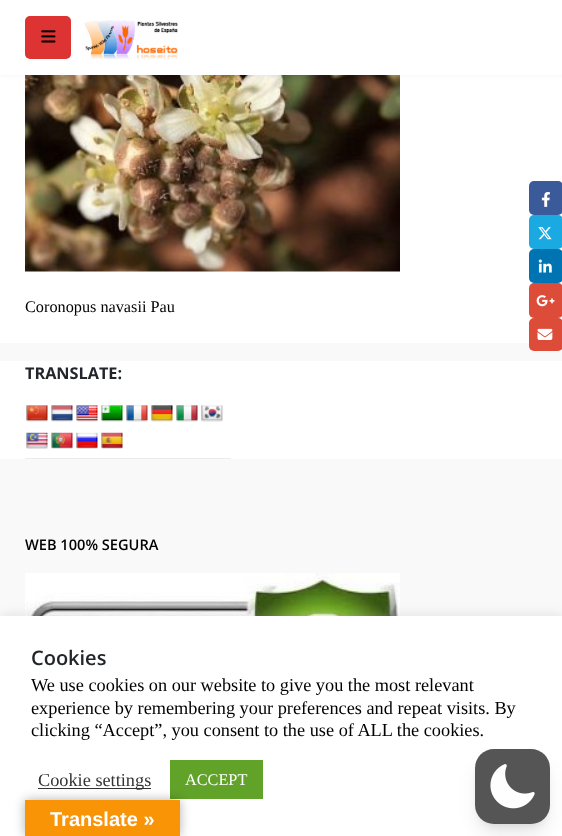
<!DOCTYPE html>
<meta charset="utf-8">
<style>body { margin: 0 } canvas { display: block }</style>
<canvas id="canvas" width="562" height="836"></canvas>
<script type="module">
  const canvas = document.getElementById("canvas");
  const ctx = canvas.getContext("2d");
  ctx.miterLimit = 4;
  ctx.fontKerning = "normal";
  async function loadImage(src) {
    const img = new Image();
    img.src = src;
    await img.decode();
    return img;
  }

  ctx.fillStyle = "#f9f9f9";
  ctx.fillRect(0, 0, 562, 836);
  ctx.fillStyle = "#ffffff";
  ctx.fillRect(0, 75, 562, 268);
  ctx.fillStyle = "#3b5a9a";
  ctx.beginPath();
  ctx.roundRect(529, 181, 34, 34, 5);
  ctx.fill();
  ctx.drawImage(await loadImage("img1.png"), 541, 192, 9, 15);
  ctx.fillStyle = "#1aa9e1";
  ctx.beginPath();
  ctx.roundRect(529, 215, 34, 34, 5);
  ctx.fill();
  ctx.drawImage(await loadImage("img2.png"), 538, 227, 14, 13);
  ctx.fillStyle = "#0073b2";
  ctx.beginPath();
  ctx.roundRect(529, 249, 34, 34, 5);
  ctx.fill();
  ctx.drawImage(await loadImage("img3.png"), 538, 259, 14, 14);
  ctx.fillStyle = "#dd4b39";
  ctx.beginPath();
  ctx.roundRect(529, 283, 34, 35, 5);
  ctx.fill();
  ctx.drawImage(await loadImage("img4.png"), 536, 295, 19, 12);
  ctx.beginPath();
  ctx.roundRect(529, 318, 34, 33, 5);
  ctx.fill();
  ctx.drawImage(await loadImage("img5.png"), 537, 328, 16, 12);
  ctx.drawImage(await loadImage("img8.png"), 25, 75, 375, 197);
  ctx.fillStyle = "rgba(0, 0, 0, 0.06)";
  ctx.filter = "blur(2px)";
  ctx.beginPath();
  ctx.rect(0, 0, 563, 75);
  ctx.fill();
  ctx.filter = "none";
  ctx.fillStyle = "#ffffff";
  ctx.fillRect(0, 0, 562, 75);
  ctx.fillStyle = "#dd3333";
  ctx.beginPath();
  ctx.roundRect(25, 16, 46, 43, 5);
  ctx.fill();
  ctx.drawImage(await loadImage("img6.png"), 41, 30, 15, 13);
  ctx.drawImage(await loadImage("img7.png"), 84, 20, 94, 40);
  ctx.font = "16.25px Liberation Serif";
  ctx.fillStyle = "#000000";
  ctx.fillText("Coronopus navasii Pau", 25, 312);
  ctx.fillStyle = "#ffffff";
  ctx.fillRect(0, 361, 562, 98);
  ctx.font = "bold 16.25px Open Sans";
  ctx.fillStyle = "#222529";
  ctx.fillText("TRANSLATE:", 25, 379);
  ctx.fillStyle = "#ebebeb";
  ctx.fillRect(25, 458, 206, 1);
  ctx.drawImage(await loadImage("img9.png"), 26, 405, 22, 17);
  ctx.drawImage(await loadImage("img10.png"), 51, 405, 22, 17);
  ctx.drawImage(await loadImage("img11.png"), 76, 405, 22, 17);
  ctx.drawImage(await loadImage("img12.png"), 101, 405, 22, 17);
  ctx.drawImage(await loadImage("img13.png"), 126, 405, 22, 17);
  ctx.drawImage(await loadImage("img14.png"), 151, 405, 22, 17);
  ctx.drawImage(await loadImage("img15.png"), 176, 405, 22, 17);
  ctx.drawImage(await loadImage("img16.png"), 201, 405, 22, 17);
  ctx.drawImage(await loadImage("img17.png"), 26, 432, 22, 17);
  ctx.drawImage(await loadImage("img18.png"), 51, 432, 22, 17);
  ctx.drawImage(await loadImage("img19.png"), 76, 432, 22, 17);
  ctx.drawImage(await loadImage("img20.png"), 101, 432, 22, 17);
  ctx.font = "600 14.6px Open Sans";
  ctx.fillStyle = "#000000";
  ctx.fillText("WEB 100% SEGURA", 25, 550);
  ctx.drawImage(await loadImage("img21.png"), 25, 573, 375, 43);
  ctx.fillStyle = "rgba(172, 171, 171, 0.3)";
  ctx.filter = "blur(6px)";
  ctx.beginPath();
  ctx.rect(0, 615, 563, 220);
  ctx.fill();
  ctx.filter = "none";
  ctx.fillStyle = "#ffffff";
  ctx.fillRect(0, 616, 562, 220);
  ctx.font = "600 20px Open Sans";
  ctx.fillStyle = "#222529";
  ctx.fillText("Cookies", 31, 665);
  ctx.font = "18.3px Liberation Serif";
  ctx.fillStyle = "#000000";
  ctx.fillText("We use cookies on our website to give you the most relevant", 31, 691);
  ctx.fillText("experience by remembering your preferences and repeat visits. By", 31, 714);
  ctx.fillText("clicking “Accept”, you consent to the use of ALL the cookies.", 31, 736);
  ctx.fillStyle = "#333333";
  ctx.fillRect(38, 788, 113, 1);
  ctx.fillText("Cookie settings", 38, 786);
  ctx.fillStyle = "#61a229";
  ctx.fillRect(170, 760, 93, 39);
  ctx.font = "16.25px Liberation Serif";
  ctx.fillStyle = "#ffffff";
  ctx.fillText("ACCEPT", 185, 785);
  ctx.fillStyle = "rgba(0, 0, 0, 0.3)";
  ctx.filter = "blur(5.5px)";
  ctx.beginPath();
  ctx.rect(25, 800, 155, 36);
  ctx.fill();
  ctx.filter = "none";
  ctx.fillStyle = "#f89406";
  ctx.fillRect(25, 800, 155, 36);
  ctx.font = "bold 20px Liberation Sans";
  ctx.fillStyle = "#ffffff";
  ctx.fillText("Translate »", 50, 826);
  ctx.fillStyle = "rgba(0, 0, 0, 0.1)";
  ctx.filter = "blur(4px)";
  ctx.beginPath();
  ctx.roundRect(480, 759, 65, 65, 14);
  ctx.fill();
  ctx.filter = "none";
  ctx.filter = "blur(9.5px)";
  ctx.beginPath();
  ctx.roundRect(479, 765, 67, 68, 15);
  ctx.fill();
  ctx.filter = "none";
  ctx.fillStyle = "#555555";
  ctx.beginPath();
  ctx.roundRect(475, 749, 75, 75, 19);
  ctx.fill();
  ctx.drawImage(await loadImage("img22.png"), 490, 764, 45, 45);
</script>
